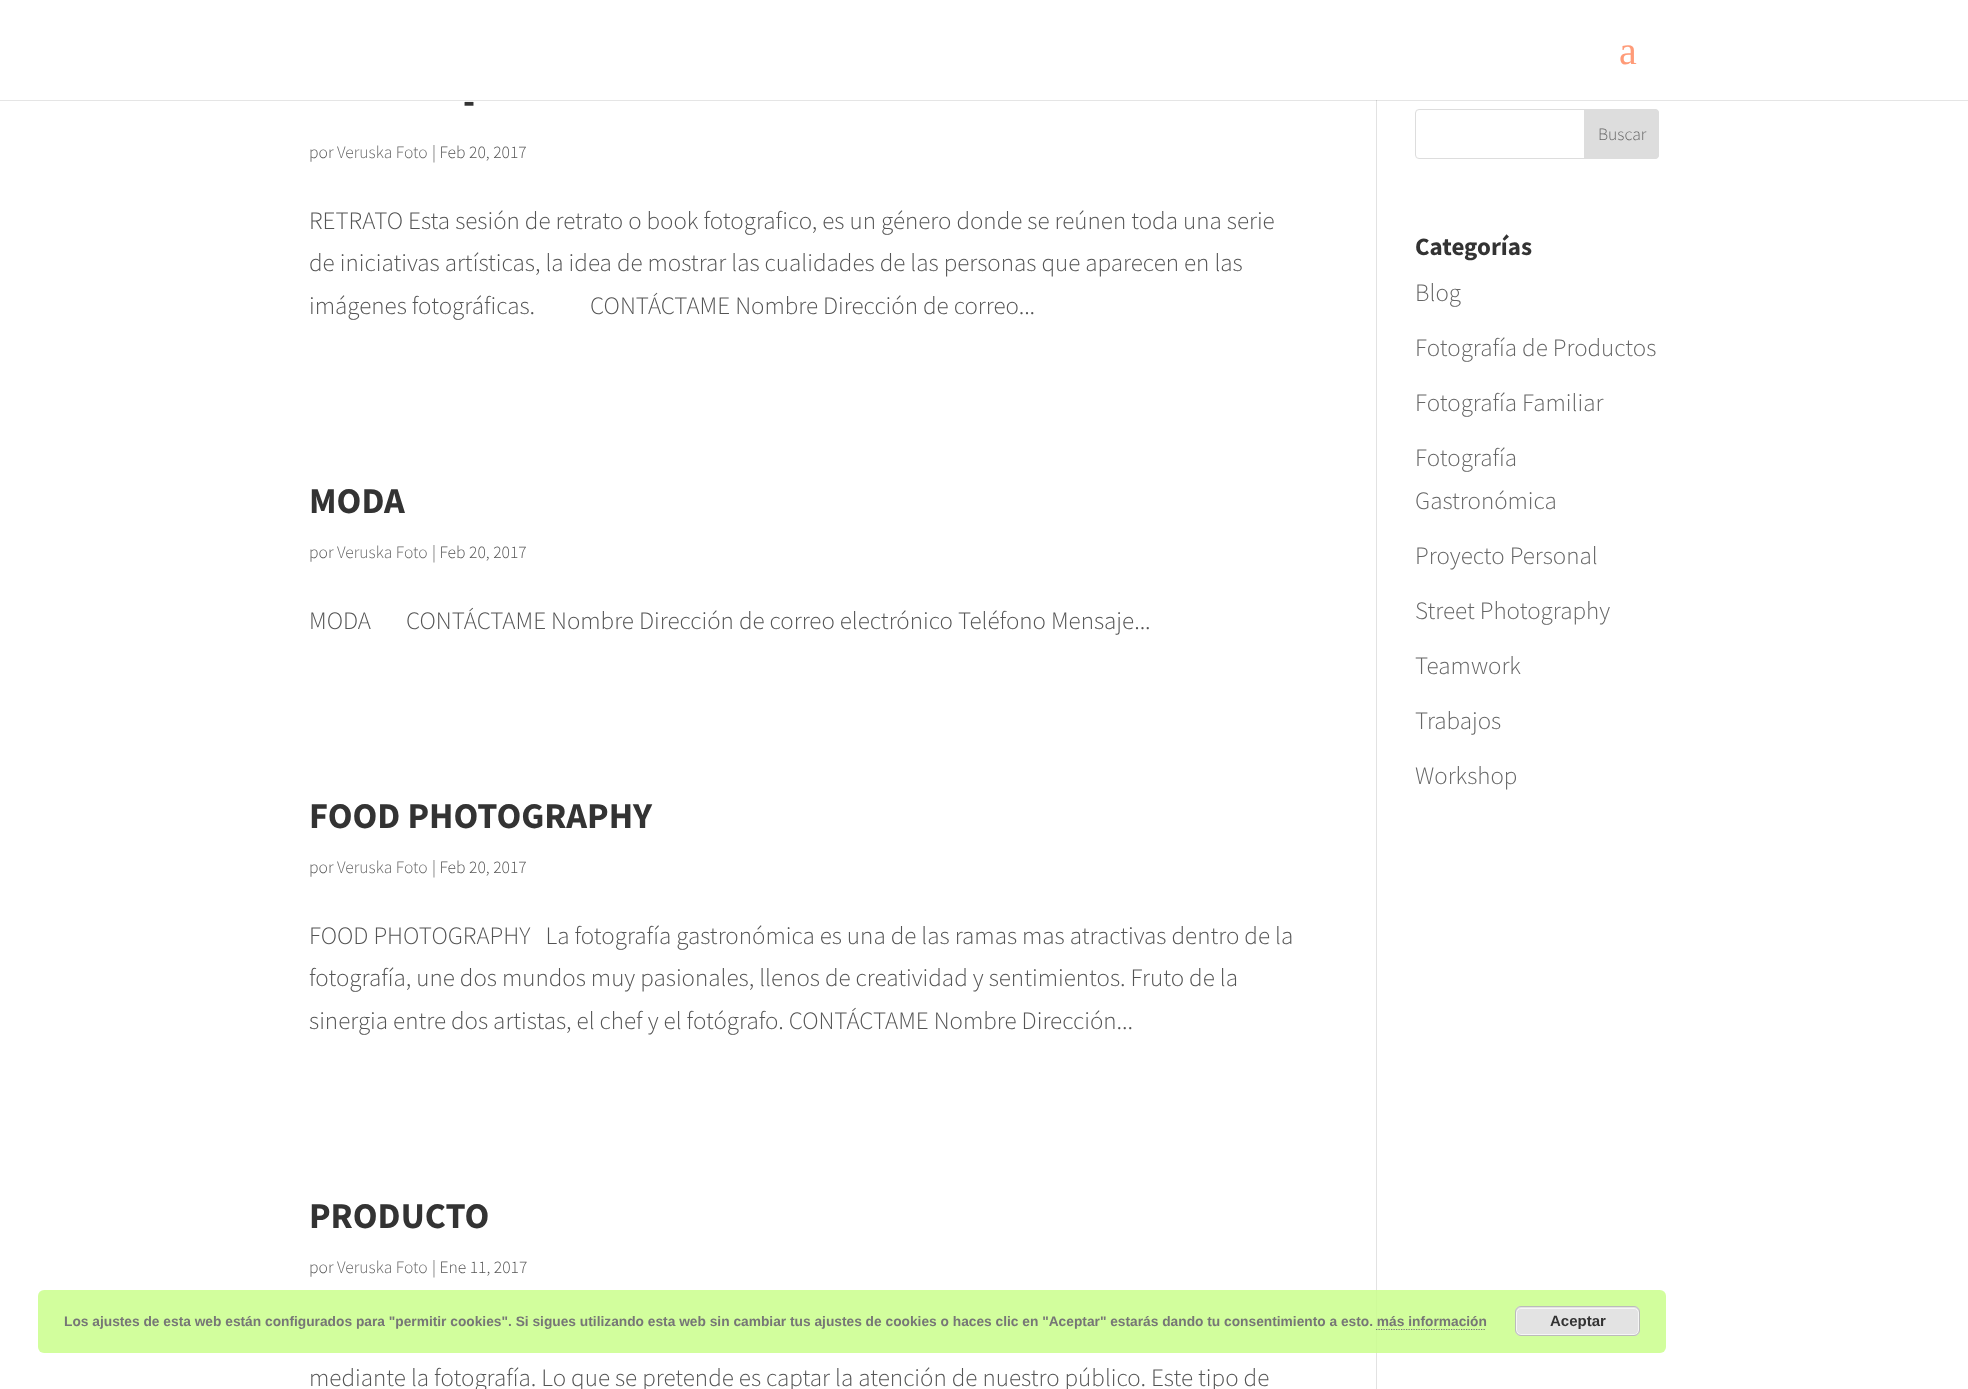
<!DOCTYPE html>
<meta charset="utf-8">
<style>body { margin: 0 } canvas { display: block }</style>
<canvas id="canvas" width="1968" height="1389"></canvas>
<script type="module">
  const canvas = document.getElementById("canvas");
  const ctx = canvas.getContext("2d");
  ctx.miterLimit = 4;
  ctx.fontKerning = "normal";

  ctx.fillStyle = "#ffffff";
  ctx.fillRect(0, 0, 1968, 1389);
  ctx.fillStyle = "#e2e2e2";
  ctx.fillRect(1376, 100, 1, 1289);
  ctx.fillStyle = "rgba(0, 0, 0, 0.1)";
  ctx.beginPath();
  ctx.moveTo(0, 100);
  ctx.lineTo(0, 101);
  ctx.lineTo(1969, 101);
  ctx.lineTo(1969, 1);
  ctx.lineTo(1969, 100);
  ctx.closePath();
  ctx.fill();
  ctx.font = "40px Liberation Serif";
  ctx.fillStyle = "#ff9b78";
  ctx.fillText("a", 1619, 64);
  ctx.font = "bold 36.25px Source Sans Pro";
  ctx.fillStyle = "#333333";
  ctx.fillText("-", 463, 113);
  ctx.font = "300 17.5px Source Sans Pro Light";
  ctx.fillStyle = "#545454";
  ctx.fillText("por", 309, 158);
  ctx.fillStyle = "#666666";
  ctx.fillText("Veruska Foto", 337, 158);
  ctx.fillStyle = "#545454";
  ctx.fillText("| Feb 20, 2017", 432, 158);
  ctx.font = "300 25px Source Sans Pro Light";
  ctx.fillText("RETRATO Esta sesión de retrato o book fotografico, es un género donde se reúnen toda una serie", 309, 229);
  ctx.fillText("de iniciativas artísticas, la idea de mostrar las cualidades de las personas que aparecen en las", 309, 271);
  ctx.fillText("imágenes fotográficas.           CONTÁCTAME Nombre Dirección de correo...", 309, 314);
  ctx.font = "bold 36.25px Source Sans Pro";
  ctx.fillStyle = "#333333";
  ctx.fillText("MODA", 309, 513);
  ctx.font = "300 17.5px Source Sans Pro Light";
  ctx.fillStyle = "#545454";
  ctx.fillText("por", 309, 558);
  ctx.fillStyle = "#666666";
  ctx.fillText("Veruska Foto", 337, 558);
  ctx.fillStyle = "#545454";
  ctx.fillText("| Feb 20, 2017", 432, 558);
  ctx.font = "300 25px Source Sans Pro Light";
  ctx.fillText("MODA       CONTÁCTAME Nombre Dirección de correo electrónico Teléfono Mensaje...", 309, 629);
  ctx.font = "bold 36.25px Source Sans Pro";
  ctx.fillStyle = "#333333";
  ctx.fillText("FOOD PHOTOGRAPHY", 309, 828);
  ctx.font = "300 17.5px Source Sans Pro Light";
  ctx.fillStyle = "#545454";
  ctx.fillText("por", 309, 873);
  ctx.fillStyle = "#666666";
  ctx.fillText("Veruska Foto", 337, 873);
  ctx.fillStyle = "#545454";
  ctx.fillText("| Feb 20, 2017", 432, 873);
  ctx.font = "300 25px Source Sans Pro Light";
  ctx.fillText("FOOD PHOTOGRAPHY   La fotografía gastronómica es una de las ramas mas atractivas dentro de la", 309, 944);
  ctx.fillText("fotografía, une dos mundos muy pasionales, llenos de creatividad y sentimientos. Fruto de la", 309, 986);
  ctx.fillText("sinergia entre dos artistas, el chef y el fotógrafo. CONTÁCTAME Nombre Dirección...", 309, 1029);
  ctx.font = "bold 36.25px Source Sans Pro";
  ctx.fillStyle = "#333333";
  ctx.fillText("PRODUCTO", 309, 1228);
  ctx.font = "300 17.5px Source Sans Pro Light";
  ctx.fillStyle = "#545454";
  ctx.fillText("por", 309, 1273);
  ctx.fillStyle = "#666666";
  ctx.fillText("Veruska Foto", 337, 1273);
  ctx.fillStyle = "#545454";
  ctx.fillText("| Ene 11, 2017", 432, 1273);
  ctx.font = "300 25px Source Sans Pro Light";
  ctx.fillText("mediante la fotografía. Lo que se pretende es captar la atención de nuestro público. Este tipo de", 309, 1386);
  ctx.beginPath();
  ctx.roundRect(1415.5, 109.5, 243, 49, 3.5);
  ctx.strokeStyle = "#dddddd";
  ctx.stroke();
  ctx.fillStyle = "#dddddd";
  ctx.beginPath();
  ctx.roundRect(1584.5, 109.5, 74, 49, [0, 3.5, 3.5, 0]);
  ctx.fill();
  ctx.stroke();
  ctx.font = "300 17.5px Source Sans Pro Light";
  ctx.fillStyle = "#666666";
  ctx.fillText("Buscar", 1598, 140);
  ctx.font = "bold 25px Source Sans Pro";
  ctx.fillStyle = "#333333";
  ctx.fillText("Categorías", 1415, 255);
  ctx.font = "300 25px Source Sans Pro Light";
  ctx.fillStyle = "#666666";
  ctx.fillText("Blog", 1415, 301);
  ctx.fillText("Fotografía de Productos", 1415, 356);
  ctx.fillText("Fotografía Familiar", 1415, 411);
  ctx.fillText("Fotografía", 1415, 466);
  ctx.fillText("Gastronómica", 1415, 509);
  ctx.fillText("Proyecto Personal", 1415, 564);
  ctx.fillText("Street Photography", 1415, 619);
  ctx.fillText("Teamwork", 1415, 674);
  ctx.fillText("Trabajos", 1415, 729);
  ctx.fillText("Workshop", 1415, 784);
  ctx.fillStyle = "rgba(202, 254, 140, 0.85)";
  ctx.beginPath();
  ctx.roundRect(38, 1290, 1628, 63, 6);
  ctx.fill();
  ctx.font = "bold 13.75px Liberation Sans";
  ctx.fillStyle = "#767676";
  ctx.fillText("Los ajustes de esta web están configurados para \"permitir cookies\". Si sigues utilizando esta web sin cambiar tus ajustes de cookies o haces clic en \"Aceptar\" estarás dando tu consentimiento a esto. más información", 64, 1326);
  ctx.fillStyle = "#e3e3e3";
  ctx.beginPath();
  ctx.roundRect(1515, 1306, 125, 30, 6);
  ctx.fill();
  ctx.beginPath();
  ctx.roundRect(1516.5, 1308.5, 122, 26, 4.5);
  ctx.strokeStyle = "#f6f6f6";
  ctx.stroke();
  ctx.beginPath();
  ctx.roundRect(1515.5, 1306.5, 124, 29, 5.5);
  ctx.strokeStyle = "#bbbbbb";
  ctx.stroke();
  ctx.font = "bold 15px Liberation Sans";
  ctx.fillStyle = "#333333";
  ctx.fillText("Aceptar", 1550, 1326);
  ctx.beginPath();
  ctx.moveTo(1376, 1329.5);
  ctx.lineTo(1486, 1329.5);
  ctx.strokeStyle = "#767676";
  ctx.lineWidth = 1.2;
  ctx.setLineDash([1.25, 1.25]);
  ctx.stroke();
</script>
